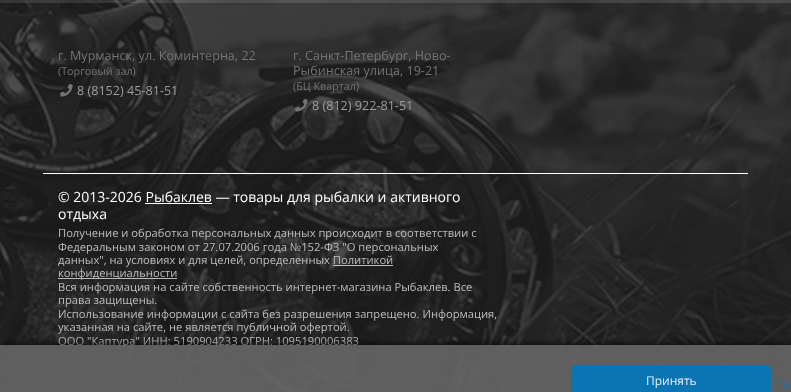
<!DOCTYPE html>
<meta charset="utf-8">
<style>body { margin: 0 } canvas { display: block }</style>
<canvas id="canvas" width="791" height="392"></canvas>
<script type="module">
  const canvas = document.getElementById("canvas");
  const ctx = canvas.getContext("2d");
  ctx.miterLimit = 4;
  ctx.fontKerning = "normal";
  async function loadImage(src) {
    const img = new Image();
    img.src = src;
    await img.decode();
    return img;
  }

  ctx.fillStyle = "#ffffff";
  ctx.fillRect(0, 0, 791, 392);
  ctx.drawImage(await loadImage("img1.png"), 0, 0, 791, 392);
  ctx.fillStyle = "rgba(64, 64, 64, 0.8)";
  ctx.fillRect(0, 0, 791, 3);
  ctx.fillStyle = "rgba(32, 32, 32, 0.8)";
  ctx.fillRect(0, 3, 791, 170);
  ctx.font = "12.6px Open Sans";
  ctx.fillStyle = "#747474";
  ctx.fillText("г. Мурманск, ул. Коминтерна, 22", 58, 60);
  ctx.font = "10.75px Open Sans";
  ctx.fillText("(Торговый зал)", 58, 75);
  ctx.drawImage(await loadImage("img2.png"), 60, 84, 13, 13);
  ctx.font = "12.6px Open Sans";
  ctx.fillStyle = "#9e9e9e";
  ctx.fillText("8 (8152) 45-81-51", 77, 95);
  ctx.fillStyle = "#747474";
  ctx.fillText("г. Санкт-Петербург, Ново-", 293, 60);
  ctx.fillText("Рыбинская улица, 19-21", 293, 75);
  ctx.font = "10.75px Open Sans";
  ctx.fillText("(БЦ Квартал)", 293, 90);
  ctx.drawImage(await loadImage("img3.png"), 295, 99, 13, 13);
  ctx.font = "12.6px Open Sans";
  ctx.fillStyle = "#9e9e9e";
  ctx.fillText("8 (812) 922-81-51", 312, 110);
  ctx.fillStyle = "rgba(32, 32, 32, 0.8)";
  ctx.fillRect(0, 173, 791, 219);
  ctx.fillStyle = "#ffffff";
  ctx.fillRect(43, 173, 705, 1);
  ctx.font = "14px Open Sans";
  ctx.fillText("© 2013-2026 Рыбаклев — товары для рыбалки и активного", 58, 202);
  ctx.fillRect(145, 203, 67, 1);
  ctx.fillText("отдыха", 58, 219);
  ctx.font = "11.2px Open Sans";
  ctx.fillStyle = "#bdbdbd";
  ctx.fillText("Получение и обработка персональных данных происходит в соответствии с", 58, 237);
  ctx.fillText("Федеральным законом от 27.07.2006 года №152-ФЗ \"О персональных", 58, 251);
  ctx.fillText("данных\", на условиях и для целей, определенных Политикой", 58, 264);
  ctx.fillRect(58, 278, 119, 1);
  ctx.fillText("конфиденциальности", 58, 277);
  ctx.fillRect(333, 265, 60, 1);
  ctx.fillText("Вся информация на сайте собственность интернет-магазина Рыбаклев. Все", 58, 291);
  ctx.fillText("права защищены.", 58, 304);
  ctx.fillText("Использование информации с сайта без разрешения запрещено. Информация,", 58, 318);
  ctx.fillText("указанная на сайте, не является публичной офертой.", 58, 331);
  ctx.fillText("ООО \"Каптура\" ИНН: 5190904233 ОГРН: 1095190006383", 58, 345);
  ctx.save();
  ctx.beginPath();
  ctx.rect(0, 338, 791, 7);
  ctx.clip();
  ctx.fillStyle = "rgba(0, 0, 0, 0.9)";
  ctx.filter = "blur(3.5px)";
  ctx.beginPath();
  ctx.rect(0, 345, 791, 47);
  ctx.fill();
  ctx.filter = "none";
  ctx.restore();
  ctx.fillStyle = "rgba(102, 102, 102, 0.9)";
  ctx.fillRect(0, 345, 791, 47);
  ctx.fillStyle = "#0b75b4";
  ctx.beginPath();
  ctx.roundRect(571, 365, 200, 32, 5);
  ctx.fill();
  ctx.font = "12px Open Sans";
  ctx.fillStyle = "#e7f1f8";
  ctx.fillText("Принять", 646, 385);
  ctx.font = "14px Open Sans";
  ctx.fillStyle = "#256e99";
  ctx.fillText("ть", 776, 389);
</script>
